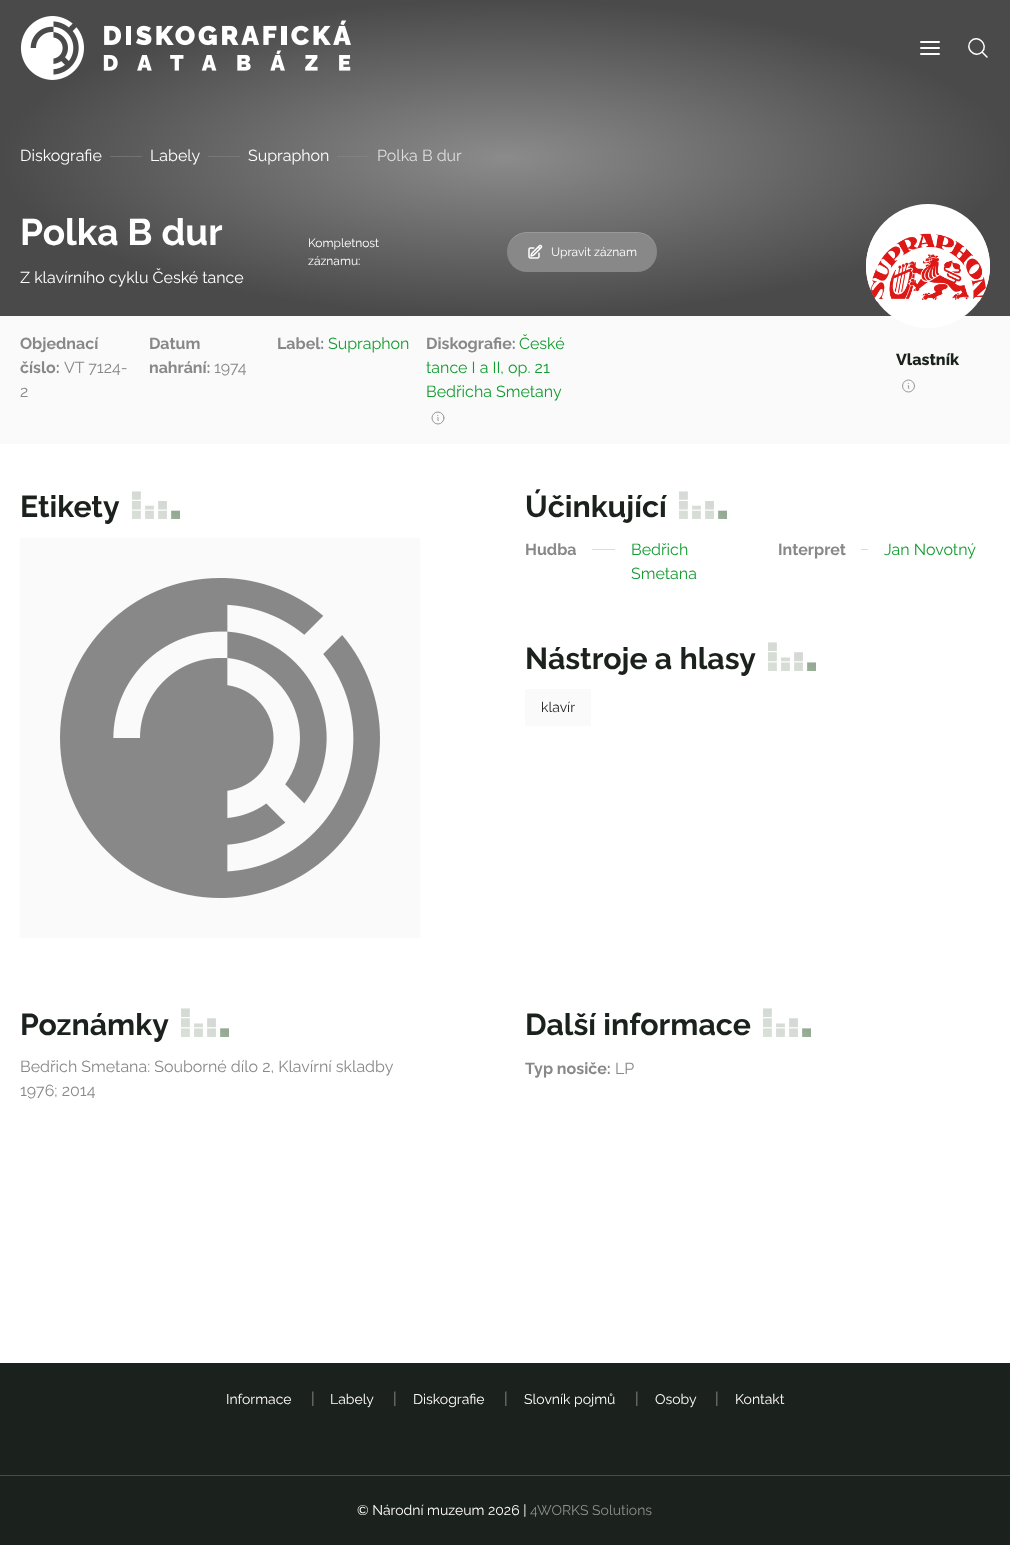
<!DOCTYPE html>
<meta charset="utf-8">
<style>body { margin: 0 } canvas { display: block }</style>
<canvas id="canvas" width="1010" height="1545"></canvas>
<script type="module">
  const canvas = document.getElementById("canvas");
  const ctx = canvas.getContext("2d");
  ctx.miterLimit = 4;
  ctx.fontKerning = "normal";
  async function loadImage(src) {
    const img = new Image();
    img.src = src;
    await img.decode();
    return img;
  }
  let gradient;

  ctx.fillStyle = "#ffffff";
  ctx.fillRect(0, 0, 1010, 1545);
  gradient = ctx.createRadialGradient(505, 505, 0, 505, 505, 505);
  gradient.addColorStop(0, "#8b8b8b");
  gradient.addColorStop(1, "#4a4a4a");
  ctx.fillStyle = gradient;
  ctx.beginPath();
  ctx.rect(0, 0, 1010, 316);
  ctx.save();
  ctx.clip();
  ctx.scale(1, 158 / 505);
  ctx.fillRect(0, 0, 1010, 4939);
  ctx.restore();
  ctx.drawImage(await loadImage("img1.png"), 20, 16, 331, 64);
  ctx.beginPath();
  ctx.moveTo(921, 48);
  ctx.lineTo(939, 48);
  ctx.moveTo(921, 42);
  ctx.lineTo(939, 42);
  ctx.moveTo(921, 54);
  ctx.lineTo(939, 54);
  ctx.strokeStyle = "#ffffff";
  ctx.lineWidth = 2;
  ctx.lineCap = "round";
  ctx.lineJoin = "round";
  ctx.stroke();
  ctx.beginPath();
  ctx.moveTo(987, 57);
  ctx.lineTo(982, 52);
  ctx.moveTo(982, 52);
  ctx.bezierCurveTo(989, 45, 978, 34, 971, 41);
  ctx.bezierCurveTo(964, 48, 975, 59, 982, 52);
  ctx.closePath();
  ctx.lineWidth = 1.5;
  ctx.stroke();
  gradient = ctx.createRadialGradient(505, 505, 0, 505, 505, 505);
  gradient.addColorStop(0, "#8a8a8a");
  gradient.addColorStop(1, "#696969");
  ctx.fillStyle = gradient;
  ctx.beginPath();
  ctx.rect(337, 156, 32, 1);
  ctx.save();
  ctx.clip();
  ctx.scale(1, 158 / 505);
  ctx.fillRect(0, 0, 1010, 4939);
  ctx.restore();
  ctx.beginPath();
  ctx.rect(208, 156, 32, 1);
  ctx.save();
  ctx.clip();
  ctx.scale(1, 158 / 505);
  ctx.fillRect(0, 0, 1010, 4939);
  ctx.restore();
  ctx.beginPath();
  ctx.rect(110, 156, 32, 1);
  ctx.save();
  ctx.clip();
  ctx.scale(1, 158 / 505);
  ctx.fillRect(0, 0, 1010, 4939);
  ctx.restore();
  ctx.font = "16px Raleway";
  ctx.fillStyle = "#ffffff";
  ctx.fillText("Diskografie", 20, 161);
  ctx.fillText("Labely", 150, 161);
  ctx.fillText("Supraphon", 248, 161);
  ctx.fillStyle = "#dedede";
  ctx.fillText("Polka B dur", 377, 161);
  ctx.font = "bold 37px Raleway";
  ctx.fillStyle = "#ffffff";
  ctx.fillText("Polka B dur", 20, 245);
  ctx.font = "16px Raleway";
  ctx.fillText("Z klavírního cyklu České tance", 20, 283);
  ctx.font = "12px Raleway";
  ctx.fillText("Kompletnost", 308, 247);
  ctx.fillText("záznamu:", 308, 265);
  ctx.fillStyle = "#888888";
  ctx.beginPath();
  ctx.roundRect(507, 232, 150, 40, 20);
  ctx.fill();
  ctx.fillStyle = "rgba(255, 255, 255, 0.15)";
  ctx.beginPath();
  ctx.moveTo(527, 233);
  ctx.lineTo(637, 233);
  ctx.bezierCurveTo(648, 233, 657, 242, 657, 253);
  ctx.lineTo(657, 252);
  ctx.bezierCurveTo(657, 241, 648, 232, 637, 232);
  ctx.lineTo(527, 232);
  ctx.bezierCurveTo(516, 232, 507, 241, 507, 252);
  ctx.lineTo(507, 253);
  ctx.bezierCurveTo(507, 242, 516, 233, 527, 233);
  ctx.closePath();
  ctx.fill();
  ctx.drawImage(await loadImage("img2.png"), 528, 244, 15, 15);
  ctx.fillStyle = "#ffffff";
  ctx.fillText("Upravit záznam", 551, 256);
  ctx.fillStyle = "#fafafa";
  ctx.fillRect(0, 316, 1010, 128);
  ctx.fillStyle = "#ffffff";
  ctx.beginPath();
  ctx.arc(928, 266, 62, 0, Math.PI * 2);
  ctx.fill();
  ctx.drawImage(await loadImage("img3.png"), 866, 232, 124, 70);
  ctx.font = "800 16px Raleway";
  ctx.fillStyle = "#1b211c";
  ctx.fillText("Vlastník", 896, 365);
  ctx.drawImage(await loadImage("img4.png"), 902, 379, 13, 14);
  ctx.font = "bold 16px Raleway";
  ctx.fillStyle = "#888888";
  ctx.fillText("Objednací", 20, 349);
  ctx.fillText("číslo:", 20, 373);
  ctx.font = "16px Raleway";
  ctx.fillText("VT 7124-", 64, 373);
  ctx.fillText("2", 20, 397);
  ctx.font = "bold 16px Raleway";
  ctx.fillText("Datum", 149, 349);
  ctx.fillText("nahrání:", 149, 373);
  ctx.font = "16px Raleway";
  ctx.fillText("1974", 214, 373);
  ctx.font = "bold 16px Raleway";
  ctx.fillText("Label:", 277, 349);
  ctx.font = "16px Raleway";
  ctx.fillStyle = "#149c31";
  ctx.fillText("Supraphon", 328, 349);
  ctx.font = "bold 16px Raleway";
  ctx.fillStyle = "#888888";
  ctx.fillText("Diskografie:", 426, 349);
  ctx.font = "16px Raleway";
  ctx.fillStyle = "#149c31";
  ctx.fillText("České", 519, 349);
  ctx.fillText("tance I a II, op. 21", 426, 373);
  ctx.fillText("Bedřicha Smetany", 426, 397);
  ctx.drawImage(await loadImage("img5.png"), 431, 411, 14, 14);
  ctx.font = "bold 30.25px Raleway";
  ctx.fillStyle = "#1b211c";
  ctx.fillText("Etikety", 20, 517);
  ctx.drawImage(await loadImage("img6.png"), 132, 491, 48, 28);
  ctx.fillStyle = "#fafafa";
  ctx.fillRect(20, 538, 400, 400);
  ctx.drawImage(await loadImage("img7.png"), 60, 578, 320, 320);
  ctx.fillStyle = "#1b211c";
  ctx.fillText("Účinkující", 525, 517);
  ctx.drawImage(await loadImage("img6.png"), 679, 491, 48, 28);
  ctx.font = "bold 16px Raleway";
  ctx.fillStyle = "#888888";
  ctx.fillText("Hudba", 525, 555);
  ctx.fillStyle = "#dbdbdb";
  ctx.fillRect(592, 549, 23, 1);
  ctx.font = "16px Raleway";
  ctx.fillStyle = "#149c31";
  ctx.fillText("Bedřich", 631, 555);
  ctx.fillText("Smetana", 631, 579);
  ctx.font = "bold 16px Raleway";
  ctx.fillStyle = "#888888";
  ctx.fillText("Interpret", 778, 555);
  ctx.fillStyle = "#dbdbdb";
  ctx.fillRect(861, 549, 7, 1);
  ctx.font = "16px Raleway";
  ctx.fillStyle = "#149c31";
  ctx.fillText("Jan Novotný", 884, 555);
  ctx.font = "bold 30.25px Raleway";
  ctx.fillStyle = "#1b211c";
  ctx.fillText("Nástroje a hlasy", 525, 669);
  ctx.drawImage(await loadImage("img8.png"), 768, 642, 48, 29);
  ctx.fillStyle = "#fafafa";
  ctx.fillRect(525, 689, 66, 37);
  ctx.font = "14px Raleway";
  ctx.fillStyle = "#1b211c";
  ctx.fillText("klavír", 541, 712);
  ctx.font = "bold 30.25px Raleway";
  ctx.fillText("Poznámky", 20, 1035);
  ctx.drawImage(await loadImage("img9.png"), 181, 1008, 48, 29);
  ctx.font = "16px Raleway";
  ctx.fillStyle = "#888888";
  ctx.fillText("Bedřich Smetana: Souborné dílo 2, Klavírní skladby", 20, 1072);
  ctx.fillText("1976; 2014", 20, 1096);
  ctx.font = "bold 30.25px Raleway";
  ctx.fillStyle = "#1b211c";
  ctx.fillText("Další informace", 525, 1035);
  ctx.drawImage(await loadImage("img10.png"), 763, 1008, 48, 29);
  ctx.font = "bold 16px Raleway";
  ctx.fillStyle = "#888888";
  ctx.fillText("Typ nosiče:", 525, 1074);
  ctx.font = "16px Raleway";
  ctx.fillText("LP", 615, 1074);
  ctx.fillStyle = "#1b211c";
  ctx.fillRect(0, 1363, 1010, 182);
  ctx.font = "14px Raleway";
  ctx.fillStyle = "#ffffff";
  ctx.fillText("Informace", 226, 1404);
  ctx.font = "16px Raleway";
  ctx.fillStyle = "#888888";
  ctx.fillText("|", 311, 1404);
  ctx.font = "14px Raleway";
  ctx.fillStyle = "#ffffff";
  ctx.fillText("Labely", 330, 1404);
  ctx.font = "16px Raleway";
  ctx.fillStyle = "#888888";
  ctx.fillText("|", 393, 1404);
  ctx.font = "14px Raleway";
  ctx.fillStyle = "#ffffff";
  ctx.fillText("Diskografie", 413, 1404);
  ctx.font = "16px Raleway";
  ctx.fillStyle = "#888888";
  ctx.fillText("|", 504, 1404);
  ctx.font = "14px Raleway";
  ctx.fillStyle = "#ffffff";
  ctx.fillText("Slovník pojmů", 524, 1404);
  ctx.font = "16px Raleway";
  ctx.fillStyle = "#888888";
  ctx.fillText("|", 635, 1404);
  ctx.font = "14px Raleway";
  ctx.fillStyle = "#ffffff";
  ctx.fillText("Osoby", 655, 1404);
  ctx.font = "16px Raleway";
  ctx.fillStyle = "#888888";
  ctx.fillText("|", 715, 1404);
  ctx.font = "14px Raleway";
  ctx.fillStyle = "#ffffff";
  ctx.fillText("Kontakt", 735, 1404);
  ctx.fillStyle = "#4b4b4b";
  ctx.fillRect(0, 1475, 1010, 1);
  ctx.fillStyle = "#ffffff";
  ctx.fillText("© Národní muzeum 2026 |", 357, 1515);
  ctx.fillStyle = "#8d908e";
  ctx.fillText("4WORKS Solutions", 530, 1515);
</script>
